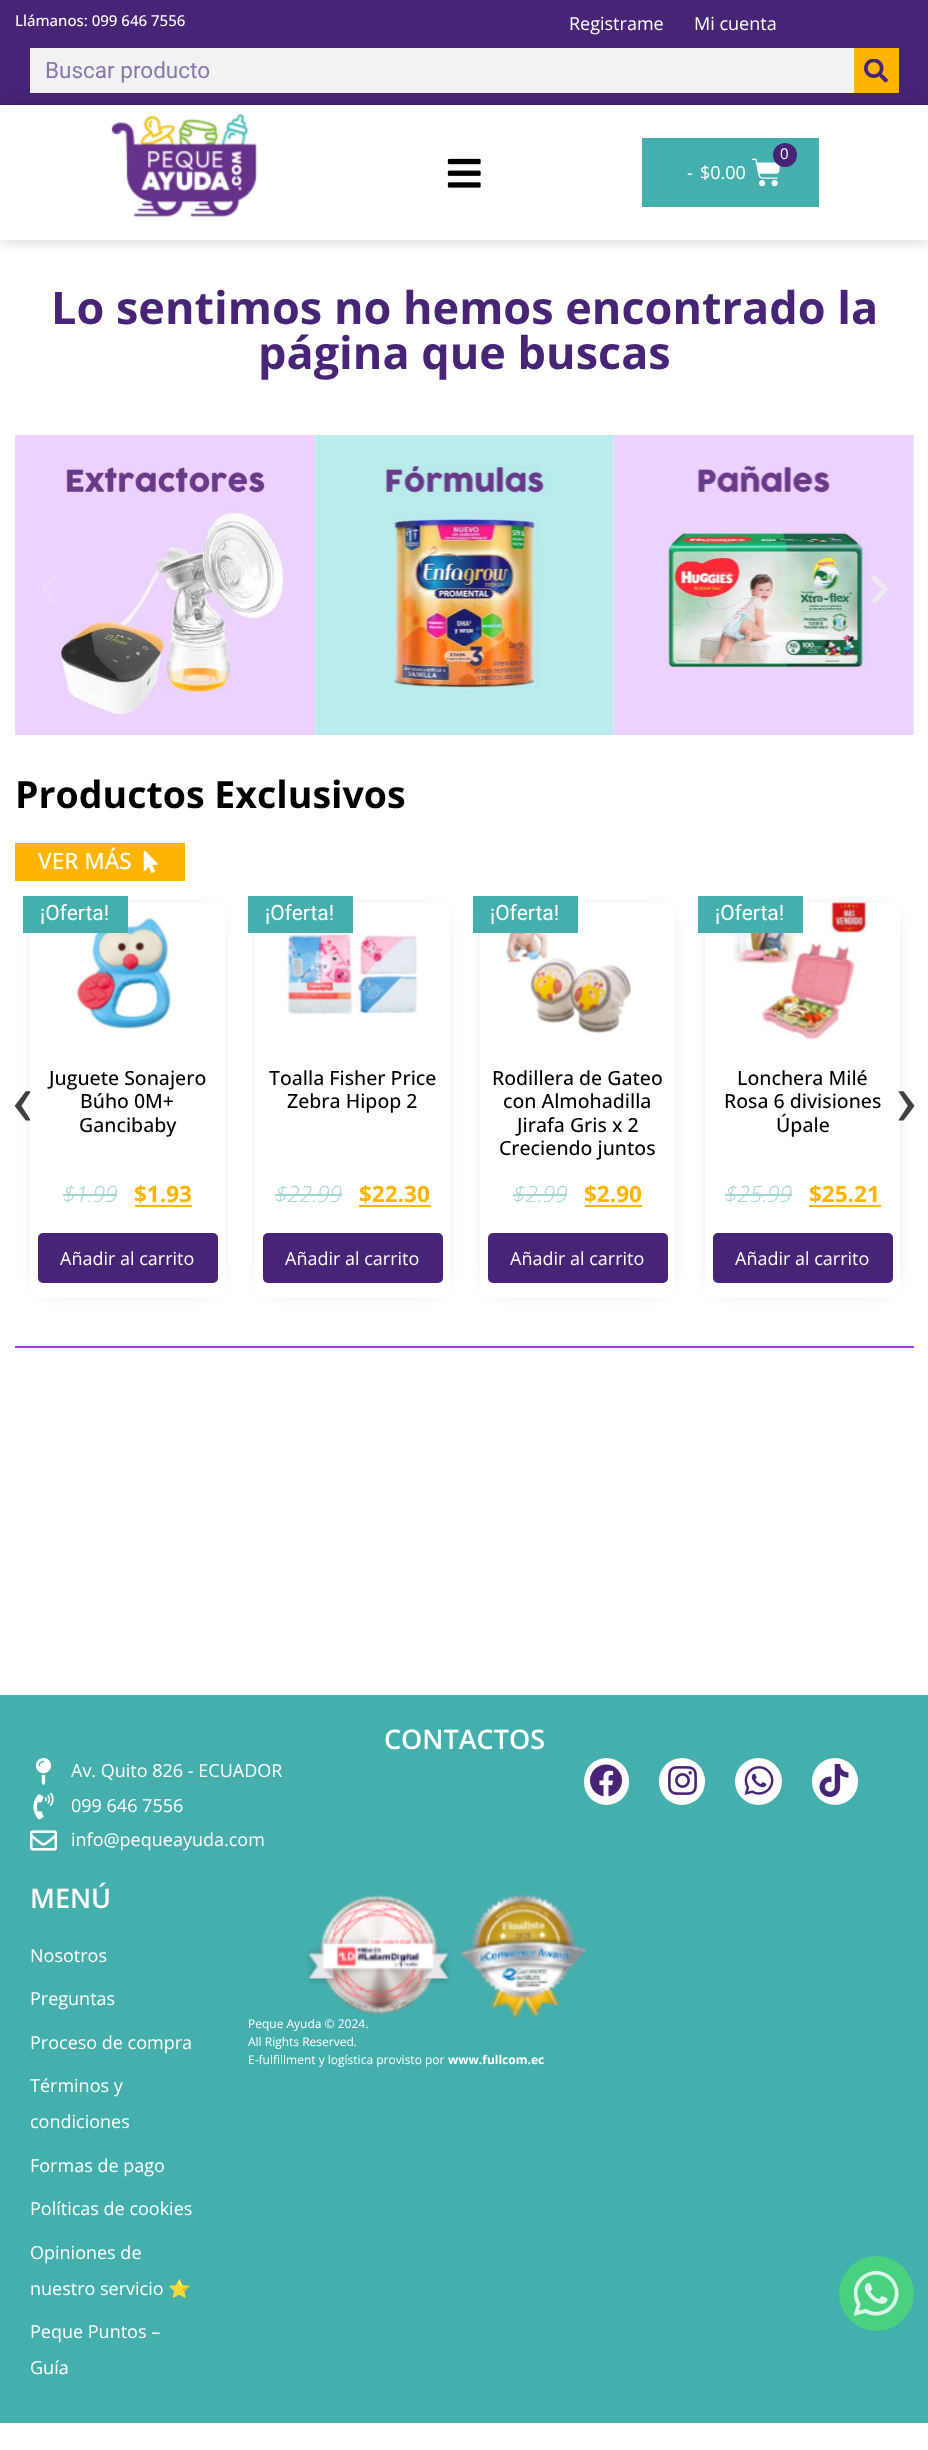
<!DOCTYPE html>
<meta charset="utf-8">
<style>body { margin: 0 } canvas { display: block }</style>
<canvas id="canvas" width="928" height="2450"></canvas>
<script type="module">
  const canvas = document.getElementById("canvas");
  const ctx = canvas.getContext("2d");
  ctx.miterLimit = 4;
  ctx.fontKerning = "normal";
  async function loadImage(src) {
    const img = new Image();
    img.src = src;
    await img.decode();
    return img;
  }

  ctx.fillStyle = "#ffffff";
  ctx.fillRect(0, 0, 928, 2450);
  ctx.fillStyle = "#472476";
  ctx.fillRect(0, 0, 928, 105);
  ctx.font = "500 15px Open Sans";
  ctx.fillStyle = "#ffffff";
  ctx.fillText("Llámanos: 099 646 7556", 15, 26);
  ctx.font = "18px Open Sans";
  ctx.fillText("Registrame", 569, 30);
  ctx.fillText("Mi cuenta", 694, 30);
  ctx.fillStyle = "#f1f2f3";
  ctx.fillRect(30, 48, 824, 45);
  ctx.font = "22.5px Roboto";
  ctx.fillStyle = "#8b76a8";
  ctx.fillText("Buscar producto", 45, 78);
  ctx.fillStyle = "#ffb400";
  ctx.fillRect(854, 48, 45, 45);
  ctx.drawImage(await loadImage("img1.png"), 864, 59, 24, 24);
  ctx.save();
  ctx.beginPath();
  ctx.moveTo(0, 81);
  ctx.lineTo(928, 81);
  ctx.lineTo(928, 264);
  ctx.lineTo(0, 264);
  ctx.closePath();
  ctx.moveTo(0, 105);
  ctx.lineTo(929, 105);
  ctx.lineTo(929, 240);
  ctx.lineTo(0, 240);
  ctx.closePath();
  ctx.clip("evenodd");
  ctx.fillStyle = "rgba(0, 0, 0, 0.2)";
  ctx.filter = "blur(7.5px)";
  ctx.beginPath();
  ctx.rect(0, 105, 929, 135);
  ctx.fill();
  ctx.filter = "none";
  ctx.restore();
  ctx.drawImage(await loadImage("img2.png"), 110, 113, 148, 104);
  ctx.drawImage(await loadImage("img3.png"), 447, 158, 34, 30);
  ctx.fillStyle = "#45afad";
  ctx.fillRect(642, 138, 177, 69);
  ctx.drawImage(await loadImage("img4.png"), 752, 158, 28, 29);
  ctx.fillStyle = "#472476";
  ctx.beginPath();
  ctx.arc(785, 155, 12, 0, Math.PI * 2);
  ctx.fill();
  ctx.font = "15px Open Sans";
  ctx.fillStyle = "#ffffff";
  ctx.fillText("0", 780, 159);
  ctx.font = "18px Open Sans";
  ctx.fillText("-", 687, 179);
  ctx.fillText("$0.00", 700, 179);
  ctx.font = "bold 45px Open Sans";
  ctx.fillStyle = "#472476";
  ctx.fillText("Lo sentimos no hemos encontrado la", 51, 324);
  ctx.fillText("página que buscas", 258, 369);
  ctx.drawImage(await loadImage("img5.png"), 15, 435, 300, 300);
  ctx.drawImage(await loadImage("img6.png"), 314, 435, 300, 300);
  ctx.drawImage(await loadImage("img7.png"), 613, 435, 300, 300);
  ctx.fillStyle = "#d8e9f6";
  ctx.fillRect(913, 435, 1, 300);
  ctx.drawImage(await loadImage("img8.png"), 41, 576, 16, 27);
  ctx.drawImage(await loadImage("img9.png"), 872, 575, 16, 29);
  ctx.font = "bold 37.5px Open Sans";
  ctx.fillStyle = "#000000";
  ctx.fillText("Productos Exclusivos", 15, 808);
  ctx.fillStyle = "#ffb400";
  ctx.fillRect(15, 843, 170, 38);
  ctx.font = "500 22.5px Open Sans";
  ctx.fillStyle = "#ffffff";
  ctx.fillText("VER MÁS", 38, 869);
  ctx.drawImage(await loadImage("img10.png"), 143, 851, 15, 22);
  ctx.font = "75px Roboto";
  ctx.fillStyle = "#404040";
  ctx.fillText("‹", 11, 1126);
  ctx.fillStyle = "rgba(0, 0, 0, 0.5)";
  ctx.filter = "blur(11px)";
  ctx.beginPath();
  ctx.rect(45, 918, 165, 365);
  ctx.fill();
  ctx.filter = "none";
  ctx.fillStyle = "#ffffff";
  ctx.fillRect(30, 903, 195, 395);
  ctx.drawImage(await loadImage("img11.png"), 76, 917, 95, 112);
  ctx.fillStyle = "#45afad";
  ctx.fillRect(23, 896, 105, 37);
  ctx.font = "21px Roboto";
  ctx.fillStyle = "#ffffff";
  ctx.fillText("¡Oferta!", 40, 920);
  ctx.font = "500 19.5px Open Sans";
  ctx.fillStyle = "#000000";
  ctx.fillText("Juguete Sonajero", 49, 1085);
  ctx.fillText("Búho 0M+", 80, 1108);
  ctx.fillText("Gancibaby", 79, 1132);
  ctx.font = "italic 300 22.5px Open Sans";
  ctx.fillStyle = "#a2d7d6";
  ctx.fillText("$1.99", 63, 1202);
  ctx.fillRect(63, 1194, 54, 2);
  ctx.font = "bold 22.5px Open Sans";
  ctx.fillStyle = "#ffb400";
  ctx.fillText("$1.93", 134, 1202);
  ctx.fillRect(135, 1205, 57, 2);
  ctx.fillStyle = "#472476";
  ctx.beginPath();
  ctx.roundRect(38, 1233, 180, 50, 5);
  ctx.fill();
  ctx.font = "18px Open Sans";
  ctx.fillStyle = "#ffffff";
  ctx.fillText("Añadir al carrito", 60, 1265);
  ctx.fillStyle = "rgba(0, 0, 0, 0.5)";
  ctx.filter = "blur(11px)";
  ctx.beginPath();
  ctx.rect(270, 918, 165, 365);
  ctx.fill();
  ctx.filter = "none";
  ctx.fillStyle = "#ffffff";
  ctx.fillRect(255, 903, 195, 395);
  ctx.fillStyle = "#45afad";
  ctx.fillRect(248, 896, 105, 37);
  ctx.font = "21px Roboto";
  ctx.fillStyle = "#ffffff";
  ctx.fillText("¡Oferta!", 265, 920);
  ctx.drawImage(await loadImage("img12.png"), 287, 934, 131, 81);
  ctx.font = "500 19.5px Open Sans";
  ctx.fillStyle = "#000000";
  ctx.fillText("Toalla Fisher Price", 269, 1085);
  ctx.fillText("Zebra Hipop 2", 287, 1108);
  ctx.font = "italic 300 22.5px Open Sans";
  ctx.fillStyle = "#a2d7d6";
  ctx.fillText("$22.99", 275, 1202);
  ctx.fillRect(275, 1194, 67, 2);
  ctx.font = "bold 22.5px Open Sans";
  ctx.fillStyle = "#ffb400";
  ctx.fillText("$22.30", 359, 1202);
  ctx.fillRect(359, 1205, 72, 2);
  ctx.fillStyle = "#472476";
  ctx.beginPath();
  ctx.roundRect(263, 1233, 180, 50, 5);
  ctx.fill();
  ctx.font = "18px Open Sans";
  ctx.fillStyle = "#ffffff";
  ctx.fillText("Añadir al carrito", 285, 1265);
  ctx.fillStyle = "rgba(0, 0, 0, 0.5)";
  ctx.filter = "blur(11px)";
  ctx.beginPath();
  ctx.rect(495, 918, 165, 365);
  ctx.fill();
  ctx.filter = "none";
  ctx.fillStyle = "#ffffff";
  ctx.fillRect(480, 903, 195, 395);
  ctx.drawImage(await loadImage("img13.png"), 505, 903, 127, 131);
  ctx.fillStyle = "#45afad";
  ctx.fillRect(473, 896, 105, 37);
  ctx.font = "21px Roboto";
  ctx.fillStyle = "#ffffff";
  ctx.fillText("¡Oferta!", 490, 920);
  ctx.font = "500 19.5px Open Sans";
  ctx.fillStyle = "#000000";
  ctx.fillText("Rodillera de Gateo", 492, 1085);
  ctx.fillText("con Almohadilla", 503, 1108);
  ctx.fillText("Jirafa Gris x 2", 517, 1132);
  ctx.fillText("Creciendo juntos", 499, 1155);
  ctx.font = "italic 300 22.5px Open Sans";
  ctx.fillStyle = "#a2d7d6";
  ctx.fillText("$2.99", 513, 1202);
  ctx.fillRect(513, 1194, 54, 2);
  ctx.font = "bold 22.5px Open Sans";
  ctx.fillStyle = "#ffb400";
  ctx.fillText("$2.90", 584, 1202);
  ctx.fillRect(585, 1205, 57, 2);
  ctx.fillStyle = "#472476";
  ctx.beginPath();
  ctx.roundRect(488, 1233, 180, 50, 5);
  ctx.fill();
  ctx.font = "18px Open Sans";
  ctx.fillStyle = "#ffffff";
  ctx.fillText("Añadir al carrito", 510, 1265);
  ctx.fillStyle = "rgba(0, 0, 0, 0.5)";
  ctx.filter = "blur(11px)";
  ctx.beginPath();
  ctx.rect(720, 918, 165, 365);
  ctx.fill();
  ctx.filter = "none";
  ctx.fillStyle = "#ffffff";
  ctx.fillRect(705, 903, 195, 395);
  ctx.drawImage(await loadImage("img14.png"), 733, 902, 135, 138);
  ctx.fillStyle = "#45afad";
  ctx.fillRect(698, 896, 105, 37);
  ctx.font = "21px Roboto";
  ctx.fillStyle = "#ffffff";
  ctx.fillText("¡Oferta!", 715, 920);
  ctx.font = "500 19.5px Open Sans";
  ctx.fillStyle = "#000000";
  ctx.fillText("Lonchera Milé", 737, 1085);
  ctx.fillText("Rosa 6 divisiones", 724, 1108);
  ctx.fillText("Úpale", 776, 1132);
  ctx.font = "italic 300 22.5px Open Sans";
  ctx.fillStyle = "#a2d7d6";
  ctx.fillText("$25.99", 725, 1202);
  ctx.fillRect(725, 1194, 67, 2);
  ctx.font = "bold 22.5px Open Sans";
  ctx.fillStyle = "#ffb400";
  ctx.fillText("$25.21", 809, 1202);
  ctx.fillRect(809, 1205, 72, 2);
  ctx.fillStyle = "#472476";
  ctx.beginPath();
  ctx.roundRect(713, 1233, 180, 50, 5);
  ctx.fill();
  ctx.font = "18px Open Sans";
  ctx.fillStyle = "#ffffff";
  ctx.fillText("Añadir al carrito", 735, 1265);
  ctx.font = "75px Roboto";
  ctx.fillStyle = "#404040";
  ctx.fillText("›", 895, 1126);
  ctx.fillStyle = "#9c3beb";
  ctx.fillRect(15, 1346, 899, 2);
  ctx.fillStyle = "#45afad";
  ctx.fillRect(0, 1695, 928, 728);
  ctx.font = "600 27px Open Sans";
  ctx.fillStyle = "#ffffff";
  ctx.fillText("CONTACTOS", 384, 1749);
  ctx.drawImage(await loadImage("img15.png"), 35, 1758, 17, 27);
  ctx.font = "18px Open Sans";
  ctx.fillText("Av. Quito 826 - ECUADOR", 71, 1777);
  ctx.drawImage(await loadImage("img16.png"), 33, 1793, 21, 27);
  ctx.fillText("099 646 7556", 71, 1812);
  ctx.drawImage(await loadImage("img17.png"), 30, 1830, 27, 21);
  ctx.fillText("info@pequeayuda.com", 71, 1846);
  ctx.beginPath();
  ctx.roundRect(584, 1758, 45, 47, 22.5);
  ctx.fill();
  ctx.drawImage(await loadImage("img18.png"), 590, 1764, 32, 33);
  ctx.beginPath();
  ctx.roundRect(659, 1758, 46, 47, 23);
  ctx.fill();
  ctx.drawImage(await loadImage("img19.png"), 668, 1766, 29, 29);
  ctx.beginPath();
  ctx.arc(758.5, 1781.5, 23.5, 0, Math.PI * 2);
  ctx.fill();
  ctx.drawImage(await loadImage("img20.png"), 744, 1766, 30, 29);
  ctx.beginPath();
  ctx.roundRect(812, 1758, 46, 47, 23);
  ctx.fill();
  ctx.drawImage(await loadImage("img21.png"), 819, 1764, 30, 33);
  ctx.font = "600 27px Open Sans";
  ctx.fillText("MENÚ", 30, 1908);
  ctx.font = "18px Open Sans";
  ctx.fillText("Nosotros", 30, 1962);
  ctx.fillText("Preguntas", 30, 2005);
  ctx.fillText("Proceso de compra", 30, 2049);
  ctx.fillText("Términos y", 30, 2092);
  ctx.fillText("condiciones", 30, 2128);
  ctx.fillText("Formas de pago", 30, 2172);
  ctx.fillText("Políticas de cookies", 30, 2215);
  ctx.fillText("Opiniones de", 30, 2259);
  ctx.fillText("nuestro servicio", 30, 2295);
  ctx.font = "18px Noto Color Emoji";
  ctx.fillText("⭐", 168, 2295);
  ctx.font = "18px Open Sans";
  ctx.fillText("Peque Puntos –", 30, 2338);
  ctx.fillText("Guía", 30, 2374);
  ctx.drawImage(await loadImage("img22.png"), 307, 1893, 280, 126);
  ctx.font = "12px Open Sans";
  ctx.fillText("Peque Ayuda © 2024.", 248, 2028);
  ctx.fillText("All Rights Reserved.", 248, 2046);
  ctx.fillText("E-fulfillment y logística provisto por", 248, 2064);
  ctx.font = "bold 12px Open Sans";
  ctx.fillText("www.fullcom.ec", 448, 2064);
  ctx.fillStyle = "#49d081";
  ctx.beginPath();
  ctx.arc(876.5, 2293.5, 37.5, 0, Math.PI * 2);
  ctx.fill();
  ctx.drawImage(await loadImage("img23.png"), 854, 2271, 45, 45);
</script>
